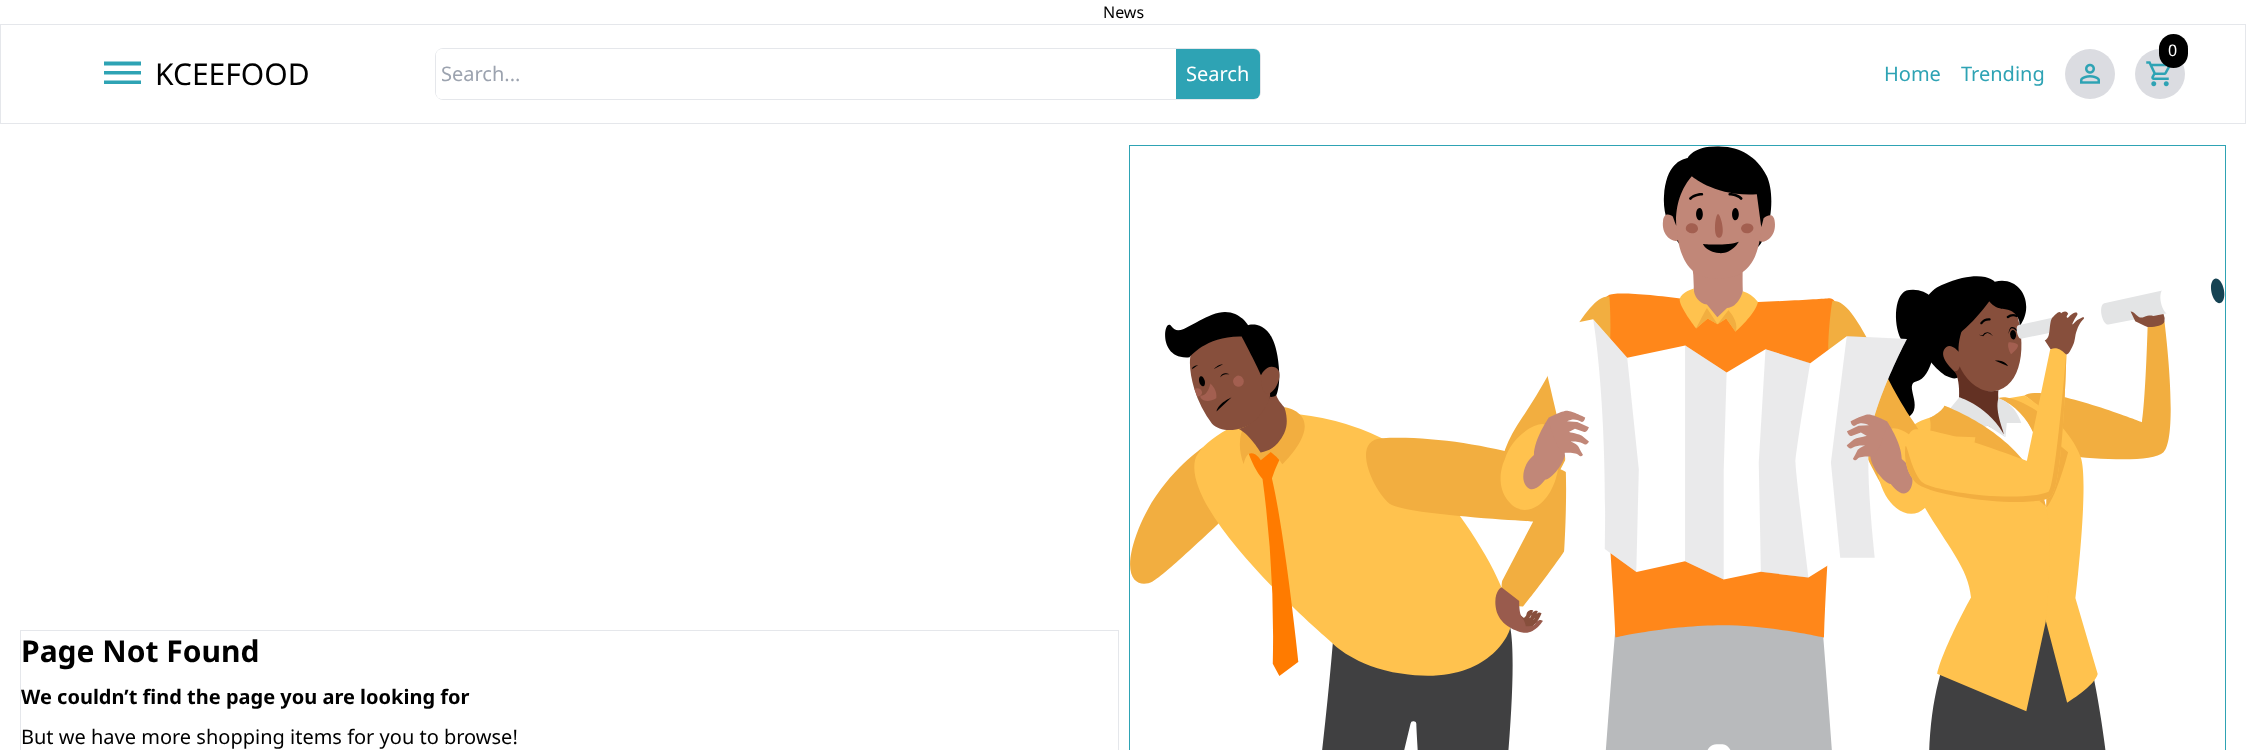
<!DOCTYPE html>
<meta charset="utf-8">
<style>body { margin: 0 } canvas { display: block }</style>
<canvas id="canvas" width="2246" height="750"></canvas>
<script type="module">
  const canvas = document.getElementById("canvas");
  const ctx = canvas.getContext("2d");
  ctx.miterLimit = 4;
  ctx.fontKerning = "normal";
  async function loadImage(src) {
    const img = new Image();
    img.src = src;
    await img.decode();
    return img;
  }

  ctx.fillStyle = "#ffffff";
  ctx.fillRect(0, 0, 2246, 750);
  ctx.font = "16px Noto Sans";
  ctx.fillStyle = "#000000";
  ctx.fillText("News", 1103, 18);
  ctx.strokeStyle = "#e5e7eb";
  ctx.strokeRect(0.5, 24.5, 2245, 99);
  ctx.fillStyle = "#2ea3b4";
  ctx.beginPath();
  ctx.moveTo(104, 80.5);
  ctx.lineTo(104, 84);
  ctx.lineTo(141, 84);
  ctx.lineTo(141, 80.5);
  ctx.closePath();
  ctx.moveTo(104, 71);
  ctx.lineTo(104, 74.5);
  ctx.lineTo(141, 74.5);
  ctx.lineTo(141, 71);
  ctx.closePath();
  ctx.moveTo(104, 61.5);
  ctx.lineTo(104, 65.5);
  ctx.lineTo(141, 65.5);
  ctx.lineTo(141, 61.5);
  ctx.closePath();
  ctx.fill();
  ctx.font = "30px Noto Sans";
  ctx.fillStyle = "#000000";
  ctx.fillText("KCEEFOOD", 155, 85);
  ctx.beginPath();
  ctx.roundRect(435.5, 48.5, 825, 51, 7.5);
  ctx.stroke();
  ctx.fillStyle = "#ffffff";
  ctx.beginPath();
  ctx.roundRect(436, 49, 740, 50, [6, 0, 0, 6]);
  ctx.fill();
  ctx.font = "20px Noto Sans";
  ctx.fillStyle = "#9ca3af";
  ctx.fillText("Search...", 441, 81);
  ctx.fillStyle = "#2ea3b4";
  ctx.beginPath();
  ctx.roundRect(1176, 49, 84, 50, [0, 6, 6, 0]);
  ctx.fill();
  ctx.fillStyle = "#ffffff";
  ctx.fillText("Search", 1186, 81);
  ctx.fillStyle = "#2ea3b4";
  ctx.fillText("Home", 1884, 81);
  ctx.fillText("Trending", 1961, 81);
  ctx.fillStyle = "#dbdce1";
  ctx.beginPath();
  ctx.arc(2090, 74, 25, 0, Math.PI * 2);
  ctx.fill();
  ctx.drawImage(await loadImage("img1.png"), 2080, 63, 20, 21);
  ctx.beginPath();
  ctx.arc(2160, 74, 25, 0, Math.PI * 2);
  ctx.fill();
  ctx.drawImage(await loadImage("img2.png"), 2146, 61, 25, 26);
  ctx.fillStyle = "#000000";
  ctx.beginPath();
  ctx.roundRect(2159, 34, 29, 34, 14.5);
  ctx.fill();
  ctx.font = "16px Noto Sans";
  ctx.fillStyle = "#ffffff";
  ctx.fillText("0", 2168, 56);
  ctx.strokeRect(20.5, 630.5, 1098, 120);
  ctx.font = "bold 30px Noto Sans";
  ctx.fillStyle = "#000000";
  ctx.fillText("Page Not Found", 21, 662);
  ctx.font = "bold 20px Noto Sans";
  ctx.fillText("We couldn’t find the page you are looking for", 21, 704);
  ctx.font = "20px Noto Sans";
  ctx.fillText("But we have more shopping items for you to browse!", 21, 744);
  ctx.strokeStyle = "#2ea3b4";
  ctx.strokeRect(1129.5, 145.5, 1096, 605);
  ctx.drawImage(await loadImage("img3.png"), 1130, 146, 1095, 604);
</script>
